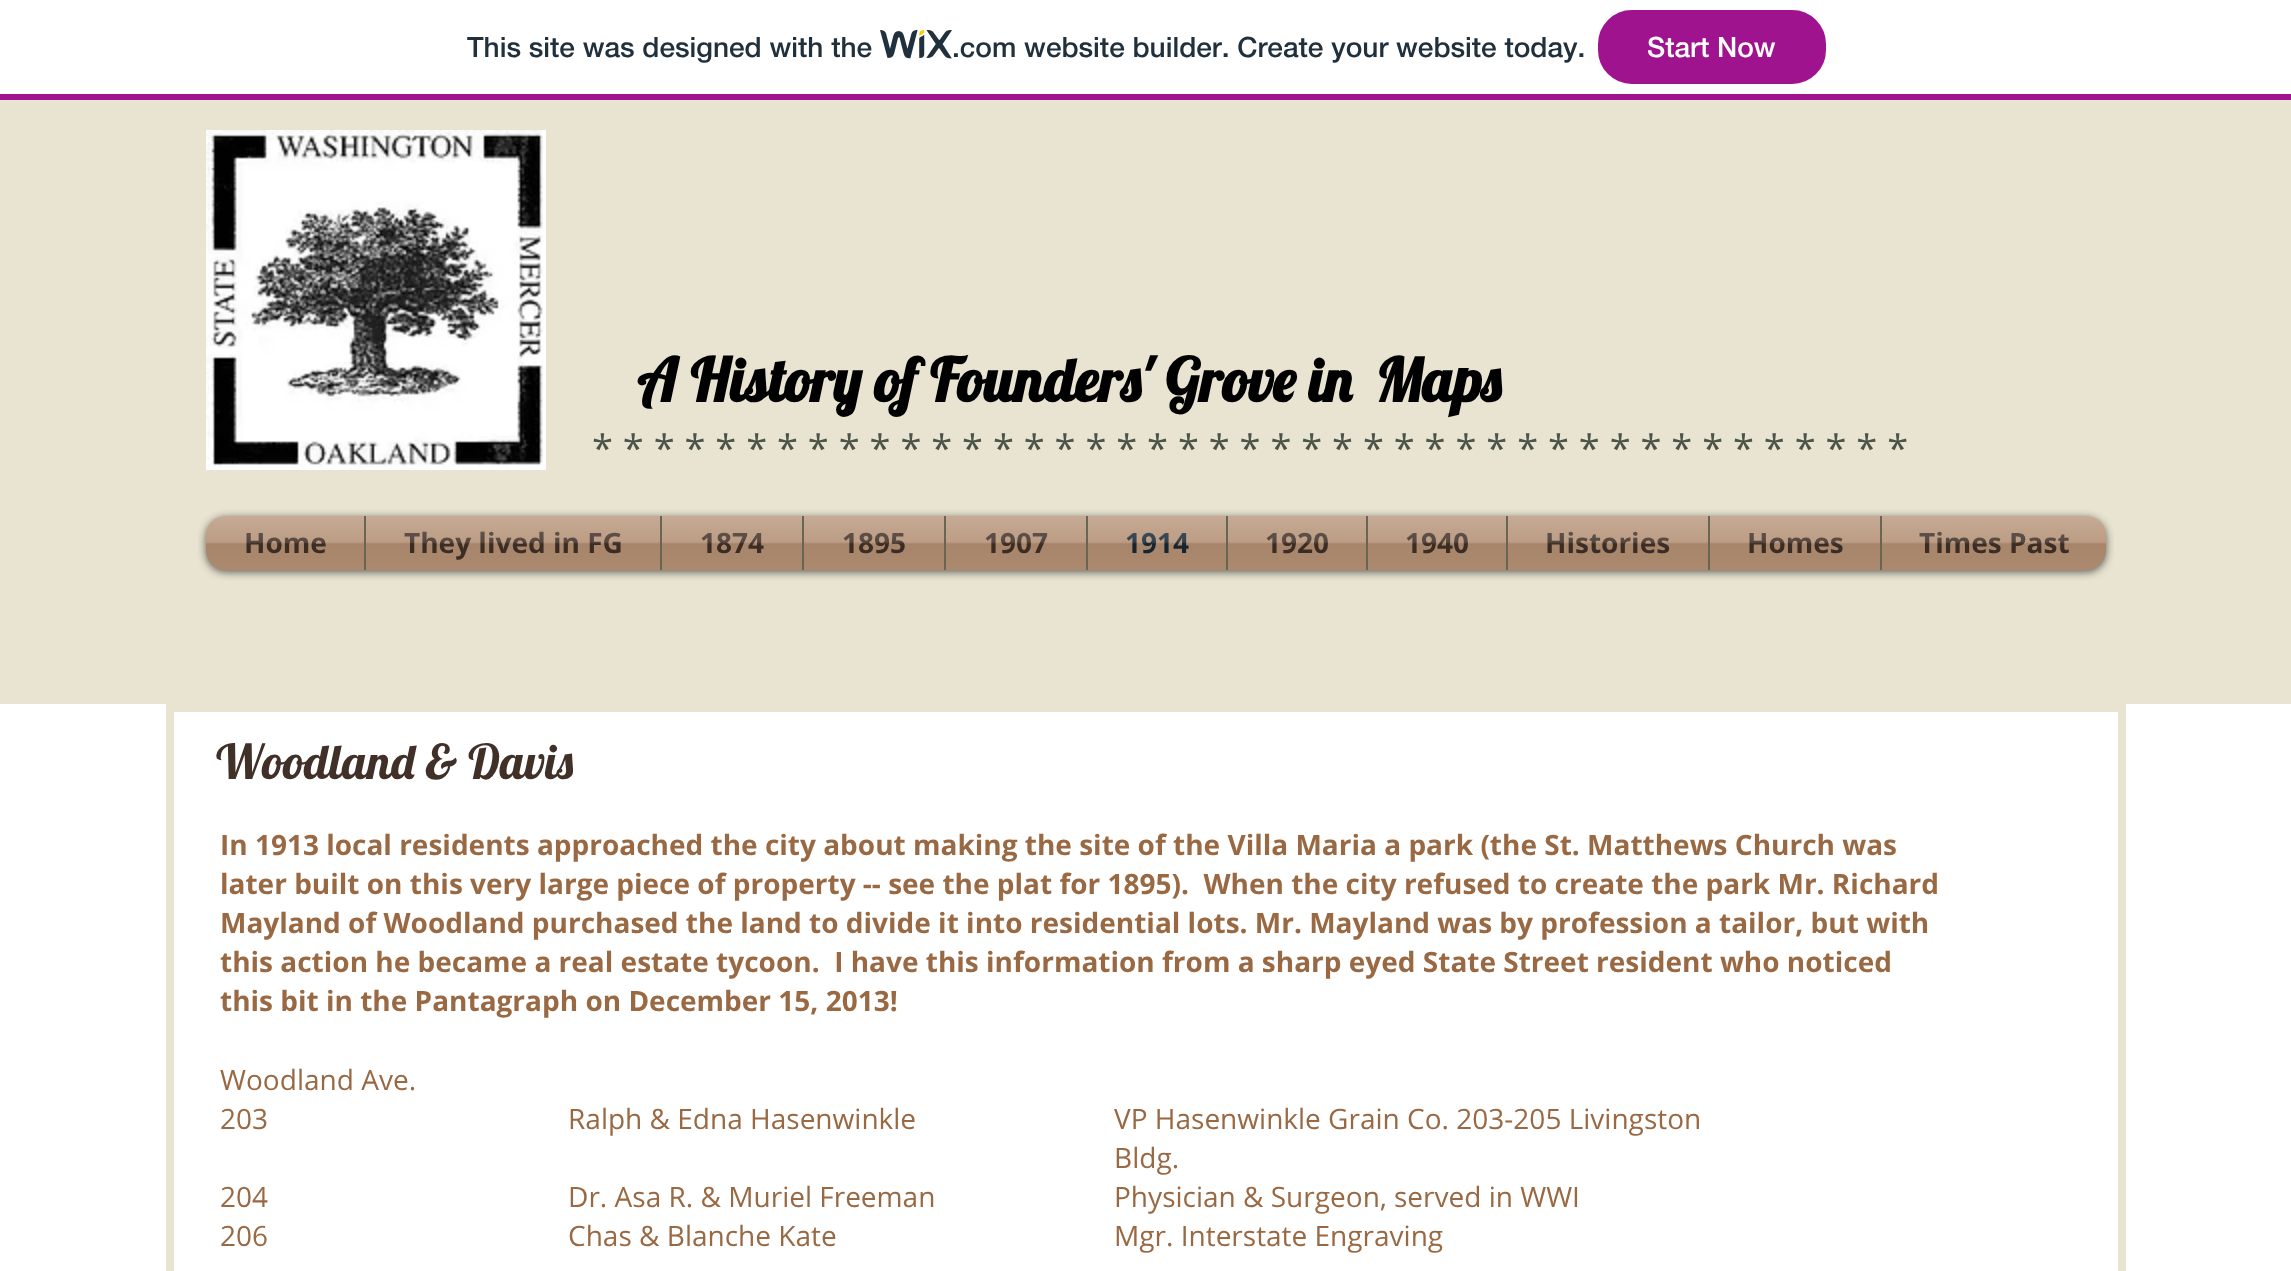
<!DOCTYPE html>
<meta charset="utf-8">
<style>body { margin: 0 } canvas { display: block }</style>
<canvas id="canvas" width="2291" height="1271"></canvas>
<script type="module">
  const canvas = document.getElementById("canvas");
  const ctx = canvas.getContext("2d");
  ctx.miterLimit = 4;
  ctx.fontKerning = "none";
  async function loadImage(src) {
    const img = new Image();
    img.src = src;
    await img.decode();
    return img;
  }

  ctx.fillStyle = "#ffffff";
  ctx.fillRect(0, 0, 2291, 1271);
  ctx.fillStyle = "#a0138e";
  ctx.fillRect(0, 94, 2291, 6);
  ctx.font = "500 28px 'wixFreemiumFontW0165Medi'";
  ctx.fillStyle = "#20303c";
  ctx.fillText("This site was designed with the", 467, 57);
  ctx.drawImage(await loadImage("img1.png"), 880, 30, 72, 29);
  ctx.fillText(".com website builder. Create your website today.", 952, 57);
  ctx.fillStyle = "#a0138e";
  ctx.beginPath();
  ctx.roundRect(1599, 11, 226, 72, 33);
  ctx.fill();
  ctx.strokeStyle = "#a0138e";
  ctx.lineWidth = 2;
  ctx.stroke();
  ctx.fillStyle = "#ffffff";
  ctx.fillText("Start Now", 1647, 57);
  ctx.fillStyle = "#e9e4d1";
  ctx.fillRect(0, 100, 2291, 604);
  ctx.drawImage(await loadImage("img2.png"), 206, 130, 340, 340);
  ctx.font = "bold 60px Lobster";
  ctx.fillStyle = "#000000";
  ctx.fillText("A History of Founders' Grove in", 637, 402);
  ctx.fillText("Maps", 1375, 402);
  ctx.font = "38px Open Sans";
  ctx.fillStyle = "#4c5449";
  ctx.fillText("* * * * * * * * * * * * * * * * * * * * * * * * * * * * * * * * * * * * * * * * * * *", 592, 462);
  ctx.fillStyle = "rgba(0, 0, 0, 0.6)";
  ctx.filter = "blur(4px)";
  ctx.beginPath();
  ctx.roundRect(206, 518, 1900, 54, 20);
  ctx.fill();
  ctx.filter = "none";
  ctx.drawImage(await loadImage("img3.png"), 206, 516, 1900, 54);
  ctx.fillStyle = "#b49074";
  ctx.beginPath();
  ctx.roundRect(206, 516, 158, 54, [20, 0, 0, 20]);
  ctx.fill();
  ctx.font = "bold 28px Open Sans";
  ctx.fillStyle = "#403027";
  ctx.fillText("Home", 244, 553);
  ctx.drawImage(await loadImage("img4.png"), 206, 516, 158, 54);
  ctx.fillStyle = "#b49074";
  ctx.fillRect(366, 516, 294, 54);
  ctx.fillStyle = "#696554";
  ctx.fillRect(364, 516, 2, 54);
  ctx.fillStyle = "#403027";
  ctx.fillText("They lived in FG", 404, 553);
  ctx.drawImage(await loadImage("img5.png"), 366, 516, 294, 54);
  ctx.fillStyle = "#b49074";
  ctx.fillRect(662, 516, 140, 54);
  ctx.fillStyle = "#696554";
  ctx.fillRect(660, 516, 2, 54);
  ctx.fillStyle = "#403027";
  ctx.fillText("1874", 700, 553);
  ctx.drawImage(await loadImage("img6.png"), 662, 516, 140, 54);
  ctx.fillStyle = "#b49074";
  ctx.fillRect(804, 516, 140, 54);
  ctx.fillStyle = "#696554";
  ctx.fillRect(802, 516, 2, 54);
  ctx.fillStyle = "#403027";
  ctx.fillText("1895", 842, 553);
  ctx.drawImage(await loadImage("img7.png"), 804, 516, 140, 54);
  ctx.fillStyle = "#b49074";
  ctx.fillRect(946, 516, 140, 54);
  ctx.fillStyle = "#696554";
  ctx.fillRect(944, 516, 2, 54);
  ctx.fillStyle = "#403027";
  ctx.fillText("1907", 984, 553);
  ctx.drawImage(await loadImage("img8.png"), 946, 516, 140, 54);
  ctx.fillStyle = "#b49074";
  ctx.fillRect(1088, 516, 138, 54);
  ctx.fillStyle = "#696554";
  ctx.fillRect(1086, 516, 2, 54);
  ctx.fillStyle = "#192834";
  ctx.fillText("1914", 1125, 553);
  ctx.drawImage(await loadImage("img9.png"), 1088, 516, 138, 54);
  ctx.fillStyle = "#b49074";
  ctx.fillRect(1228, 516, 138, 54);
  ctx.fillStyle = "#696554";
  ctx.fillRect(1226, 516, 2, 54);
  ctx.fillStyle = "#403027";
  ctx.fillText("1920", 1265, 553);
  ctx.drawImage(await loadImage("img10.png"), 1228, 516, 138, 54);
  ctx.fillStyle = "#b49074";
  ctx.fillRect(1368, 516, 138, 54);
  ctx.fillStyle = "#696554";
  ctx.fillRect(1366, 516, 2, 54);
  ctx.fillStyle = "#403027";
  ctx.fillText("1940", 1405, 553);
  ctx.drawImage(await loadImage("img11.png"), 1368, 516, 138, 54);
  ctx.fillStyle = "#b49074";
  ctx.fillRect(1508, 516, 200, 54);
  ctx.fillStyle = "#696554";
  ctx.fillRect(1506, 516, 2, 54);
  ctx.fillStyle = "#403027";
  ctx.fillText("Histories", 1545, 553);
  ctx.drawImage(await loadImage("img12.png"), 1508, 516, 200, 54);
  ctx.fillStyle = "#b49074";
  ctx.fillRect(1710, 516, 170, 54);
  ctx.fillStyle = "#696554";
  ctx.fillRect(1708, 516, 2, 54);
  ctx.fillStyle = "#403027";
  ctx.fillText("Homes", 1747, 553);
  ctx.drawImage(await loadImage("img13.png"), 1710, 516, 170, 54);
  ctx.fillStyle = "#b49074";
  ctx.beginPath();
  ctx.roundRect(1880, 516, 226, 54, [0, 20, 20, 0]);
  ctx.fill();
  ctx.fillStyle = "#696554";
  ctx.fillRect(1880, 516, 2, 54);
  ctx.fillStyle = "#403027";
  ctx.fillText("Times Past", 1919, 553);
  ctx.drawImage(await loadImage("img14.png"), 1882, 516, 224, 54);
  ctx.strokeStyle = "#e9e4d1";
  ctx.lineWidth = 8;
  ctx.strokeRect(170, 708, 1952, 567);
  ctx.font = "48px Lobster";
  ctx.fillText("Woodland & Davis", 216, 779);
  ctx.font = "bold 28px Open Sans";
  ctx.fillStyle = "#996944";
  ctx.fillText("In 1913 local residents approached the city about making the site of the Villa Maria a park (the St. Matthews Church was", 220, 855);
  ctx.fillText("later built on this very large piece of property -- see the plat for 1895).  When the city refused to create the park Mr. Richard", 220, 894);
  ctx.fillText("Mayland of Woodland purchased the land to divide it into residential lots. Mr. Mayland was by profession a tailor, but with", 220, 933);
  ctx.fillText("this action he became a real estate tycoon.  I have this information from a sharp eyed State Street resident who noticed", 220, 972);
  ctx.fillText("this bit in the Pantagraph on December 15, 2013!", 220, 1011);
  ctx.font = "28px Open Sans";
  ctx.fillText("Woodland Ave.", 220, 1090);
  ctx.fillText("203", 220, 1129);
  ctx.fillText("Ralph & Edna Hasenwinkle", 568, 1129);
  ctx.fillText("VP Hasenwinkle Grain Co. 203-205 Livingston", 1114, 1129);
  ctx.fillText("Bldg.", 1114, 1168);
  ctx.fillText("204", 220, 1207);
  ctx.fillText("Dr. Asa R. & Muriel Freeman", 568, 1207);
  ctx.fillText("Physician & Surgeon, served in WWI", 1114, 1207);
  ctx.fillText("206", 220, 1246);
  ctx.fillText("Chas & Blanche Kate", 568, 1246);
  ctx.fillText("Mgr. Interstate Engraving", 1114, 1246);
</script>
